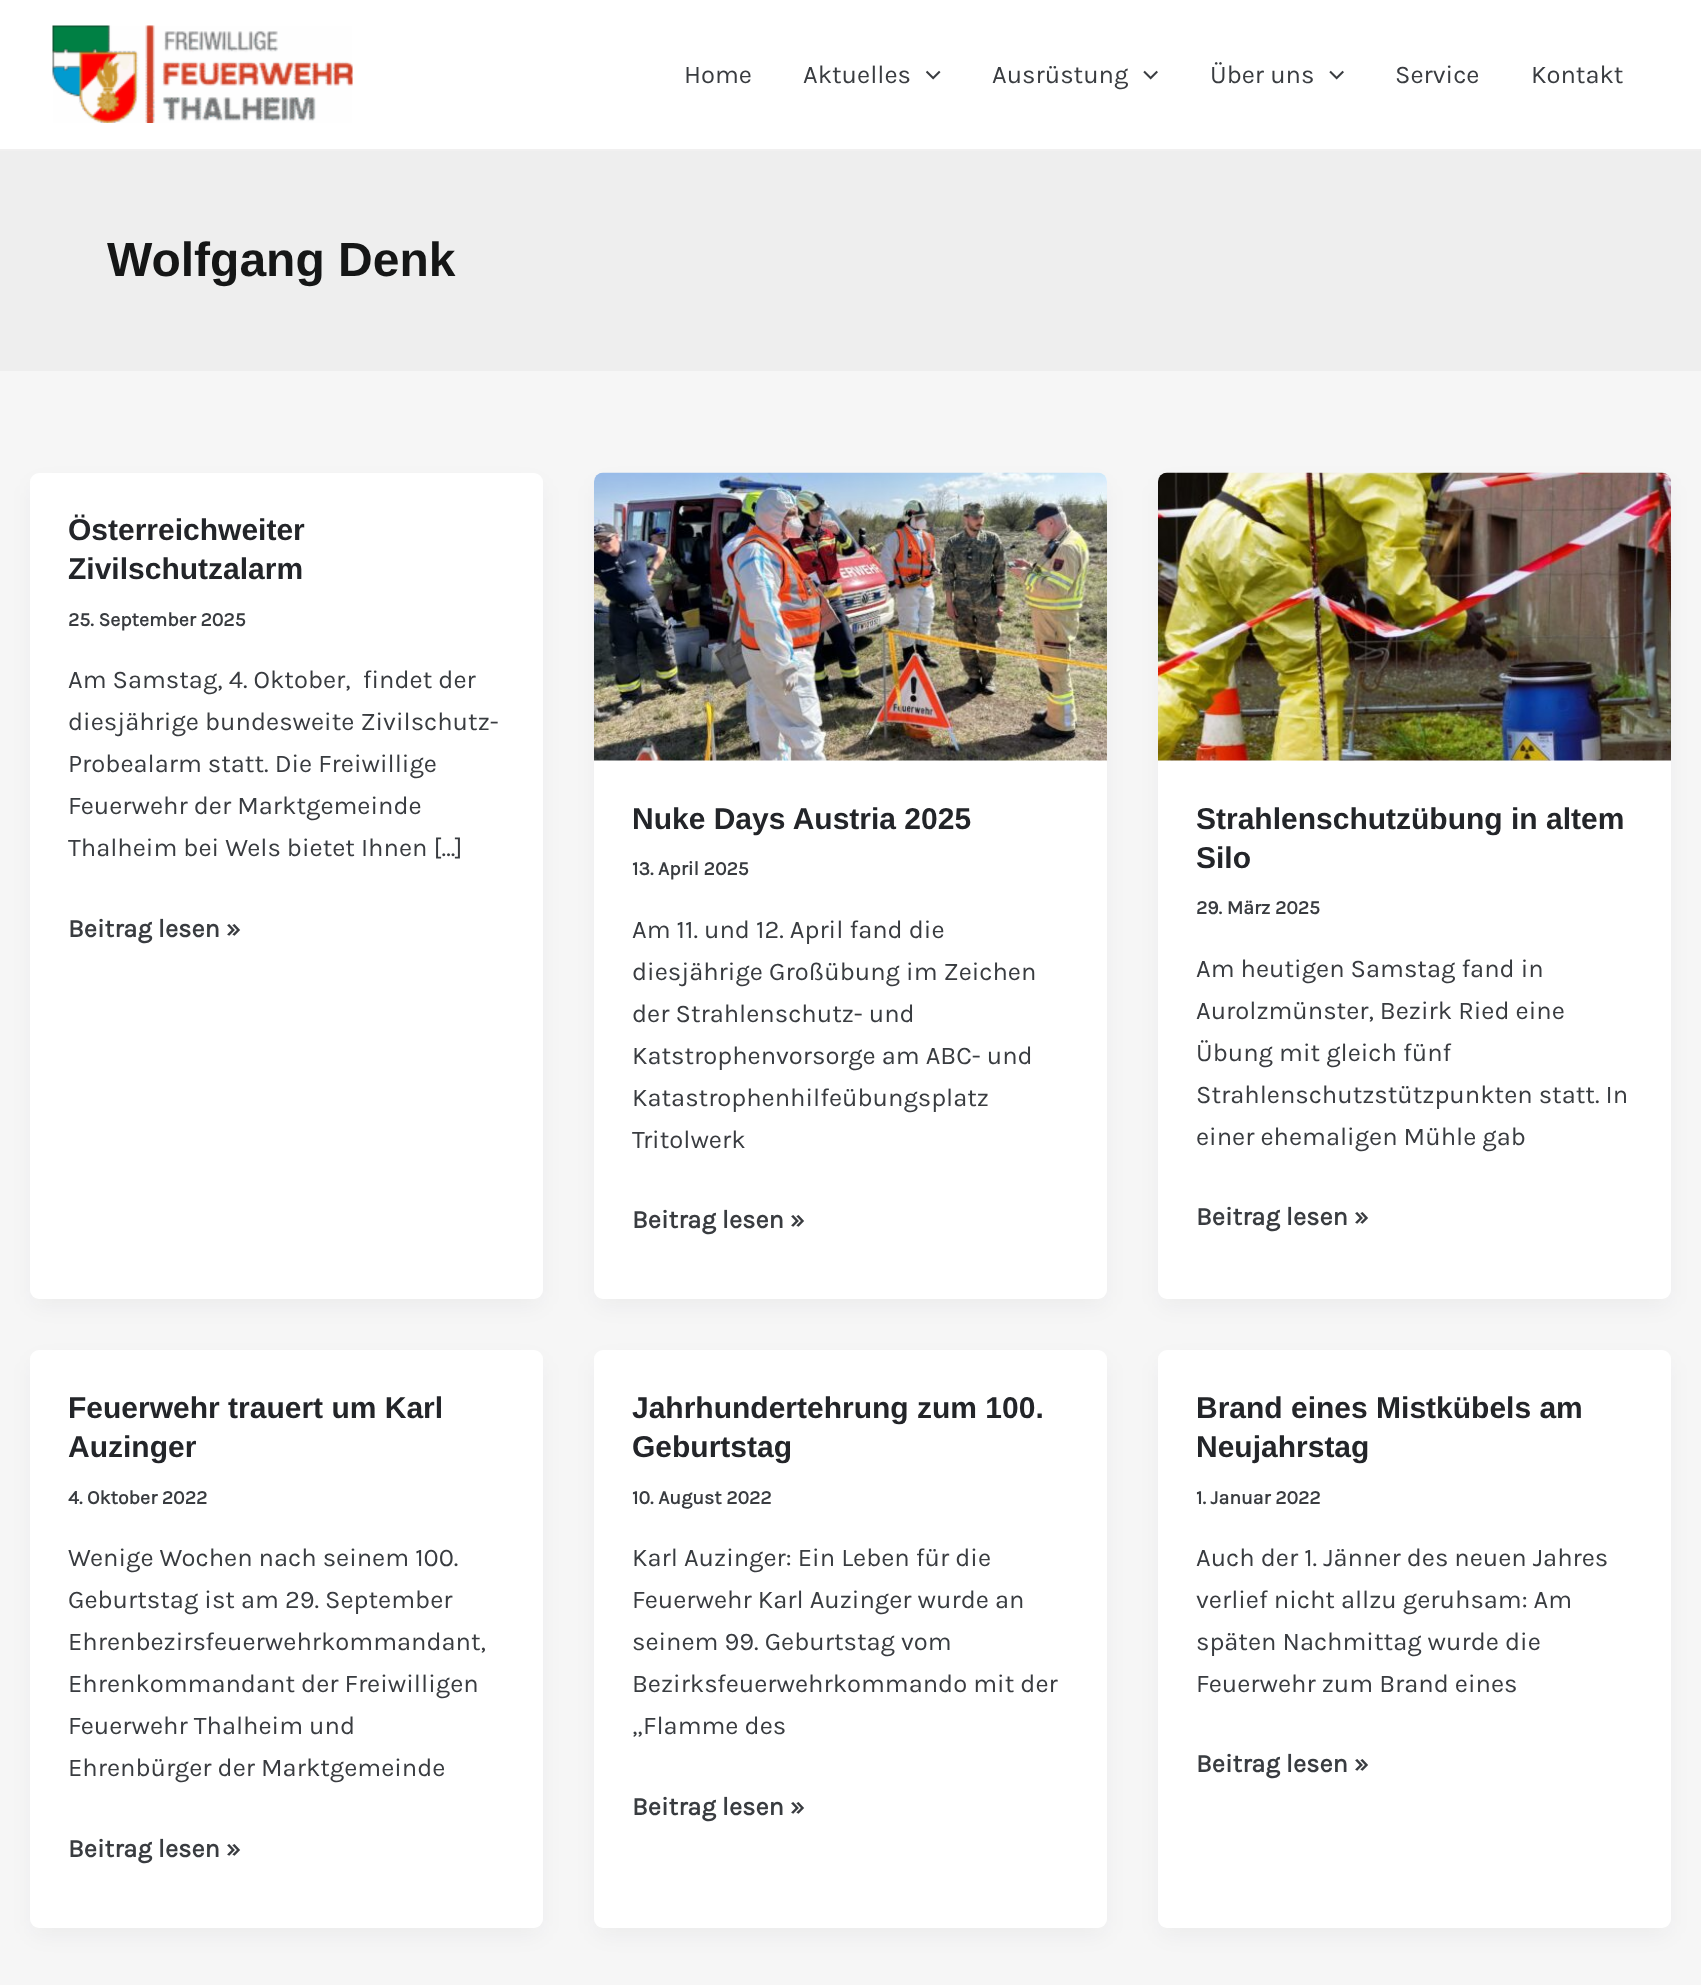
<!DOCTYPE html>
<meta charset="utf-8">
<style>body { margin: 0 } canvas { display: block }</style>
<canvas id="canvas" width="1701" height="1985"></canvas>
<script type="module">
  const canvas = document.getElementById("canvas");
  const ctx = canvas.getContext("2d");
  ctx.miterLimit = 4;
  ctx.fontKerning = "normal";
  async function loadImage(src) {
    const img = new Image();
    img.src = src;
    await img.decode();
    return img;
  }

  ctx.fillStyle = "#f6f6f6";
  ctx.fillRect(0, 0, 1701, 1985);
  ctx.fillStyle = "#ffffff";
  ctx.fillRect(0, 0, 1701, 149);
  ctx.fillStyle = "#f1f0f0";
  ctx.fillRect(0, 149, 1701, 2);
  ctx.drawImage(await loadImage("img1.png"), 52, 25, 301, 98);
  ctx.font = "25.5px Karla";
  ctx.fillStyle = "#393c40";
  ctx.fillText("Home", 684, 83);
  ctx.fillText("Aktuelles", 803, 83);
  ctx.drawImage(await loadImage("img2.png"), 926, 70, 15, 10);
  ctx.fillText("Ausrüstung", 992, 83);
  ctx.drawImage(await loadImage("img3.png"), 1143, 70, 15, 10);
  ctx.fillText("Über uns", 1210, 83);
  ctx.drawImage(await loadImage("img3.png"), 1329, 70, 15, 10);
  ctx.fillText("Service", 1395, 83);
  ctx.fillText("Kontakt", 1531, 83);
  ctx.fillStyle = "#eeeeee";
  ctx.fillRect(0, 151, 1701, 220);
  ctx.font = "bold 48px Liberation Sans";
  ctx.fillStyle = "#151616";
  ctx.fillText("Wolfgang Denk", 107, 276);
  ctx.fillStyle = "rgba(16, 24, 40, 0.05)";
  ctx.filter = "blur(11px)";
  ctx.beginPath();
  ctx.roundRect(33, 485, 507, 820, 6);
  ctx.fill();
  ctx.filter = "none";
  ctx.fillStyle = "#ffffff";
  ctx.beginPath();
  ctx.roundRect(30, 473, 513, 826, 9);
  ctx.fill();
  ctx.font = "bold 30px Liberation Sans";
  ctx.fillStyle = "#232529";
  ctx.fillText("Österreichweiter", 68, 540);
  ctx.fillText("Zivilschutzalarm", 68, 579);
  ctx.font = "bold 19.5px Karla";
  ctx.fillStyle = "#393c40";
  ctx.fillText("25. September 2025", 68, 626);
  ctx.font = "25.5px Karla";
  ctx.fillText("Am Samstag, 4. Oktober,  findet der", 68, 688);
  ctx.fillText("diesjährige bundesweite Zivilschutz-", 68, 730);
  ctx.fillText("Probealarm statt. Die Freiwillige", 68, 772);
  ctx.fillText("Feuerwehr der Marktgemeinde", 68, 814);
  ctx.fillText("Thalheim bei Wels bietet Ihnen […]", 68, 856);
  ctx.font = "bold 25.5px Karla";
  ctx.fillText("Beitrag lesen »", 68, 937);
  ctx.fillStyle = "rgba(16, 24, 40, 0.05)";
  ctx.filter = "blur(11px)";
  ctx.beginPath();
  ctx.roundRect(597, 485, 507, 820, 6);
  ctx.fill();
  ctx.filter = "none";
  ctx.fillStyle = "#ffffff";
  ctx.beginPath();
  ctx.roundRect(594, 473, 513, 826, 9);
  ctx.fill();
  ctx.drawImage(await loadImage("img4.png"), 594, 472, 513, 289);
  ctx.font = "bold 30px Liberation Sans";
  ctx.fillStyle = "#232529";
  ctx.fillText("Nuke Days Austria 2025", 632, 829);
  ctx.font = "bold 19.5px Karla";
  ctx.fillStyle = "#393c40";
  ctx.fillText("13. April 2025", 632, 875);
  ctx.font = "25.5px Karla";
  ctx.fillText("Am 11. und 12. April fand die", 632, 938);
  ctx.fillText("diesjährige Großübung im Zeichen", 632, 980);
  ctx.fillText("der Strahlenschutz- und", 632, 1022);
  ctx.fillText("Katstrophenvorsorge am ABC- und", 632, 1064);
  ctx.fillText("Katastrophenhilfeübungsplatz", 632, 1106);
  ctx.fillText("Tritolwerk", 632, 1148);
  ctx.font = "bold 25.5px Karla";
  ctx.fillText("Beitrag lesen »", 632, 1228);
  ctx.fillStyle = "rgba(16, 24, 40, 0.05)";
  ctx.filter = "blur(11px)";
  ctx.beginPath();
  ctx.roundRect(1161, 485, 507, 820, 6);
  ctx.fill();
  ctx.filter = "none";
  ctx.fillStyle = "#ffffff";
  ctx.beginPath();
  ctx.roundRect(1158, 473, 513, 826, 9);
  ctx.fill();
  ctx.drawImage(await loadImage("img5.png"), 1158, 472, 513, 289);
  ctx.font = "bold 30px Liberation Sans";
  ctx.fillStyle = "#232529";
  ctx.fillText("Strahlenschutzübung in altem", 1196, 829);
  ctx.fillText("Silo", 1196, 868);
  ctx.font = "bold 19.5px Karla";
  ctx.fillStyle = "#393c40";
  ctx.fillText("29. März 2025", 1196, 914);
  ctx.font = "25.5px Karla";
  ctx.fillText("Am heutigen Samstag fand in", 1196, 977);
  ctx.fillText("Aurolzmünster, Bezirk Ried eine", 1196, 1019);
  ctx.fillText("Übung mit gleich fünf", 1196, 1061);
  ctx.fillText("Strahlenschutzstützpunkten statt. In", 1196, 1103);
  ctx.fillText("einer ehemaligen Mühle gab", 1196, 1145);
  ctx.font = "bold 25.5px Karla";
  ctx.fillText("Beitrag lesen »", 1196, 1225);
  ctx.fillStyle = "rgba(16, 24, 40, 0.05)";
  ctx.filter = "blur(11px)";
  ctx.beginPath();
  ctx.roundRect(33, 1362, 507, 572, 6);
  ctx.fill();
  ctx.filter = "none";
  ctx.fillStyle = "#ffffff";
  ctx.beginPath();
  ctx.roundRect(30, 1350, 513, 578, 9);
  ctx.fill();
  ctx.font = "bold 30px Liberation Sans";
  ctx.fillStyle = "#232529";
  ctx.fillText("Feuerwehr trauert um Karl", 68, 1418);
  ctx.fillText("Auzinger", 68, 1457);
  ctx.font = "bold 19.5px Karla";
  ctx.fillStyle = "#393c40";
  ctx.fillText("4. Oktober 2022", 68, 1504);
  ctx.font = "25.5px Karla";
  ctx.fillText("Wenige Wochen nach seinem 100.", 68, 1566);
  ctx.fillText("Geburtstag ist am 29. September", 68, 1608);
  ctx.fillText("Ehrenbezirsfeuerwehrkommandant,", 68, 1650);
  ctx.fillText("Ehrenkommandant der Freiwilligen", 68, 1692);
  ctx.fillText("Feuerwehr Thalheim und", 68, 1734);
  ctx.fillText("Ehrenbürger der Marktgemeinde", 68, 1776);
  ctx.font = "bold 25.5px Karla";
  ctx.fillText("Beitrag lesen »", 68, 1857);
  ctx.fillStyle = "rgba(16, 24, 40, 0.05)";
  ctx.filter = "blur(11px)";
  ctx.beginPath();
  ctx.roundRect(597, 1362, 507, 572, 6);
  ctx.fill();
  ctx.filter = "none";
  ctx.fillStyle = "#ffffff";
  ctx.beginPath();
  ctx.roundRect(594, 1350, 513, 578, 9);
  ctx.fill();
  ctx.font = "bold 30px Liberation Sans";
  ctx.fillStyle = "#232529";
  ctx.fillText("Jahrhundertehrung zum 100.", 632, 1418);
  ctx.fillText("Geburtstag", 632, 1457);
  ctx.font = "bold 19.5px Karla";
  ctx.fillStyle = "#393c40";
  ctx.fillText("10. August 2022", 632, 1504);
  ctx.font = "25.5px Karla";
  ctx.fillText("Karl Auzinger: Ein Leben für die", 632, 1566);
  ctx.fillText("Feuerwehr Karl Auzinger wurde an", 632, 1608);
  ctx.fillText("seinem 99. Geburtstag vom", 632, 1650);
  ctx.fillText("Bezirksfeuerwehrkommando mit der", 632, 1692);
  ctx.fillText("„Flamme des", 632, 1734);
  ctx.font = "bold 25.5px Karla";
  ctx.fillText("Beitrag lesen »", 632, 1815);
  ctx.fillStyle = "rgba(16, 24, 40, 0.05)";
  ctx.filter = "blur(11px)";
  ctx.beginPath();
  ctx.roundRect(1161, 1362, 507, 572, 6);
  ctx.fill();
  ctx.filter = "none";
  ctx.fillStyle = "#ffffff";
  ctx.beginPath();
  ctx.roundRect(1158, 1350, 513, 578, 9);
  ctx.fill();
  ctx.font = "bold 30px Liberation Sans";
  ctx.fillStyle = "#232529";
  ctx.fillText("Brand eines Mistkübels am", 1196, 1418);
  ctx.fillText("Neujahrstag", 1196, 1457);
  ctx.font = "bold 19.5px Karla";
  ctx.fillStyle = "#393c40";
  ctx.fillText("1. Januar 2022", 1196, 1504);
  ctx.font = "25.5px Karla";
  ctx.fillText("Auch der 1. Jänner des neuen Jahres", 1196, 1566);
  ctx.fillText("verlief nicht allzu geruhsam: Am", 1196, 1608);
  ctx.fillText("späten Nachmittag wurde die", 1196, 1650);
  ctx.fillText("Feuerwehr zum Brand eines", 1196, 1692);
  ctx.font = "bold 25.5px Karla";
  ctx.fillText("Beitrag lesen »", 1196, 1772);
</script>
